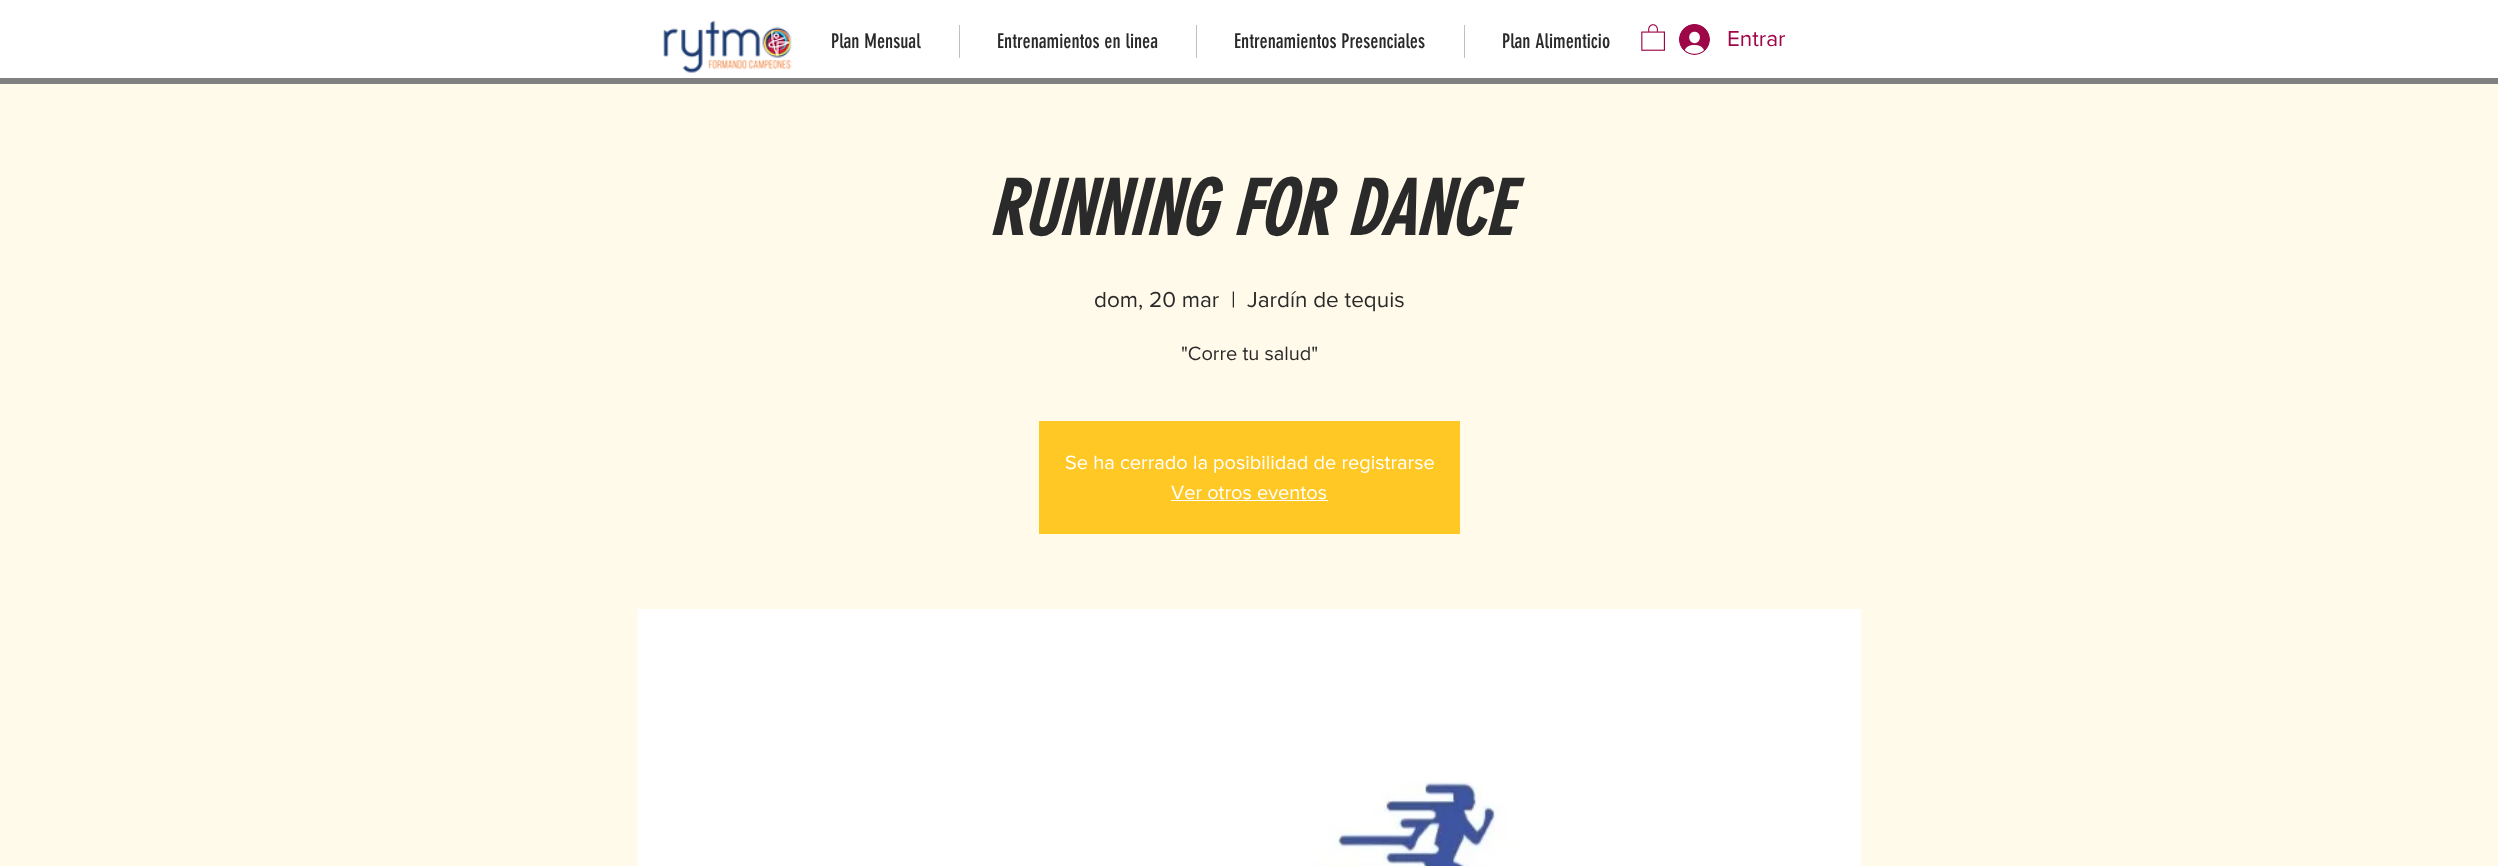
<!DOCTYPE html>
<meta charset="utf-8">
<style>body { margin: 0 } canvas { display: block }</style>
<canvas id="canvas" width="2498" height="866"></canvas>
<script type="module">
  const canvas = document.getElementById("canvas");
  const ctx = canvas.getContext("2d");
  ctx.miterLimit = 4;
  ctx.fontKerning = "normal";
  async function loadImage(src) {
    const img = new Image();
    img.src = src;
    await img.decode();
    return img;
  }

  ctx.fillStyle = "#ffffff";
  ctx.fillRect(0, 0, 2498, 866);
  ctx.drawImage(await loadImage("img1.png"), 663, 20, 129, 53);
  ctx.font = "20px 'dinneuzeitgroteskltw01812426'";
  ctx.fillStyle = "#2a2a2a";
  ctx.fillText("Plan Mensual", 831, 48);
  ctx.fillStyle = "#c0c0c0";
  ctx.fillRect(959, 25, 1, 33);
  ctx.fillStyle = "#2a2a2a";
  ctx.fillText("Entrenamientos en linea", 997, 48);
  ctx.fillStyle = "#c0c0c0";
  ctx.fillRect(1196, 25, 1, 33);
  ctx.fillStyle = "#2a2a2a";
  ctx.fillText("Entrenamientos Presenciales", 1234, 48);
  ctx.fillStyle = "#c0c0c0";
  ctx.fillRect(1464, 25, 1, 33);
  ctx.fillStyle = "#2a2a2a";
  ctx.fillText("Plan Alimenticio", 1502, 48);
  ctx.drawImage(await loadImage("img2.png"), 1641, 24, 24, 27);
  ctx.drawImage(await loadImage("img3.png"), 1679, 24, 31, 31);
  ctx.font = "22.5px 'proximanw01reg'";
  ctx.fillStyle = "#9e0648";
  ctx.fillText("Entrar", 1727, 46);
  ctx.fillStyle = "#808080";
  ctx.fillRect(0, 78, 2498, 6);
  ctx.fillStyle = "#fffaea";
  ctx.fillRect(0, 84, 2498, 782);
  ctx.font = "italic bold 75px 'dinneuzeitgroteskltw01812426'";
  ctx.fillStyle = "#2a2a2a";
  ctx.fillText("RUNNING FOR DANCE", 988, 235);
  ctx.font = "22.5px 'proximanw01reg'";
  ctx.fillText("dom, 20 mar", 1094, 307);
  ctx.fillText("|", 1231, 307);
  ctx.fillText("Jardín de tequis", 1247, 307);
  ctx.font = "20px 'proximanw01reg'";
  ctx.fillText("\"Corre tu salud\"", 1181, 360);
  ctx.fillStyle = "#ffc824";
  ctx.fillRect(1039, 421, 421, 113);
  ctx.fillStyle = "#ffffff";
  ctx.fillText("Se ha cerrado la posibilidad de registrarse", 1065, 469);
  ctx.fillText("Ver otros eventos", 1171, 499);
  ctx.fillRect(1171, 500, 157, 1);
  ctx.drawImage(await loadImage("img4.png"), 637, 609, 1224, 257);
</script>
